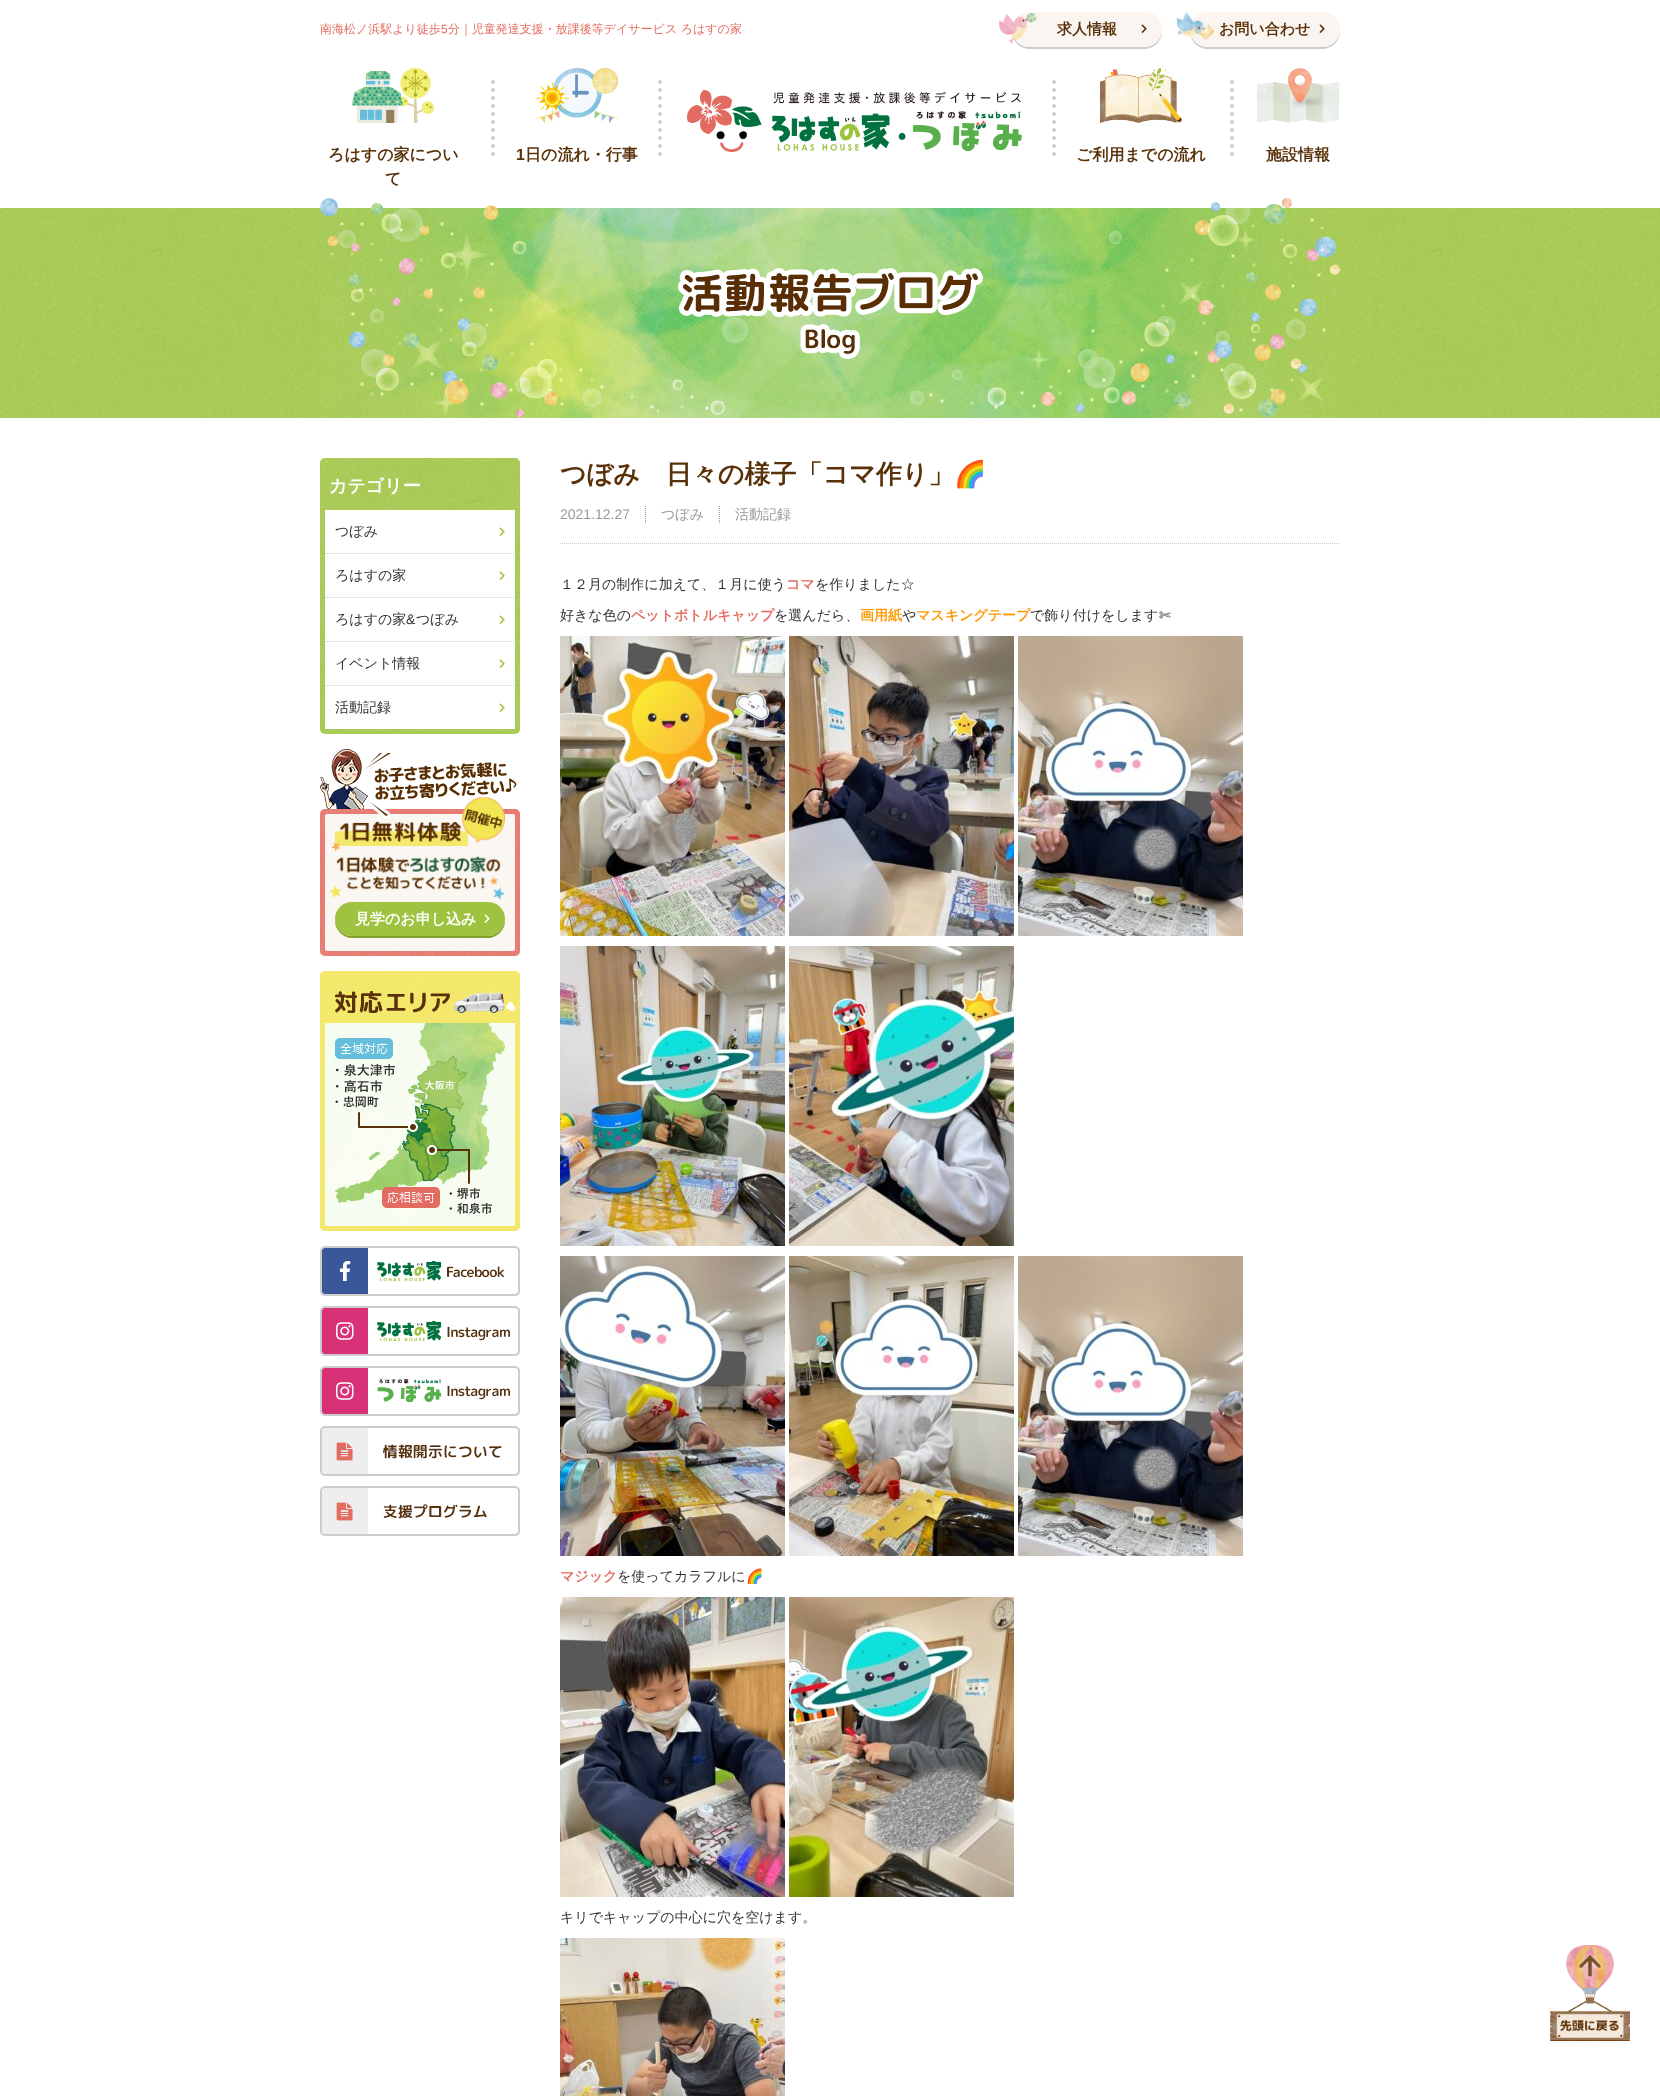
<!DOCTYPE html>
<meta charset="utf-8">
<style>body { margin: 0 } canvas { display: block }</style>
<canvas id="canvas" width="1660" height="2096"></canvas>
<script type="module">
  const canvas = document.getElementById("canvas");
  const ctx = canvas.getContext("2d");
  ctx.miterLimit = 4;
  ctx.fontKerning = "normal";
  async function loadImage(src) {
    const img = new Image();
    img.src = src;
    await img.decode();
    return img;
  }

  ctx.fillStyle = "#ffffff";
  ctx.fillRect(0, 0, 1660, 2096);
  ctx.font = "500 12px WenQuanYi Zen Hei";
  ctx.fillStyle = "#e46b60";
  ctx.fillText("南海松ノ浜駅より徒歩", 320, 33);
  ctx.font = "12px Liberation Sans";
  ctx.fillText("5", 441, 33);
  ctx.font = "500 12px WenQuanYi Zen Hei";
  ctx.fillText("分｜児童発達支援・放課後等デイサービス ろはすの家", 448, 33);
  ctx.fillStyle = "#cccccc";
  ctx.beginPath();
  ctx.moveTo(1012, 30);
  ctx.lineTo(1012, 32);
  ctx.bezierCurveTo(1012, 41, 1020, 49, 1030, 49);
  ctx.lineTo(1144, 49);
  ctx.bezierCurveTo(1154, 49, 1162, 41, 1162, 32);
  ctx.lineTo(1162, 30);
  ctx.bezierCurveTo(1161, 40, 1154, 47, 1144, 47);
  ctx.lineTo(1030, 47);
  ctx.bezierCurveTo(1020, 47, 1013, 40, 1012, 30);
  ctx.closePath();
  ctx.fill();
  ctx.fillStyle = "#faf5f0";
  ctx.beginPath();
  ctx.roundRect(1012, 12, 150, 35, 17.5);
  ctx.fill();
  ctx.drawImage(await loadImage("img1.png"), 999, 13, 38, 31);
  ctx.font = "bold 15px WenQuanYi Zen Hei";
  ctx.fillStyle = "#5a320a";
  ctx.fillText("求人情報", 1057, 34);
  ctx.drawImage(await loadImage("img2.png"), 1141, 24, 6, 9);
  ctx.fillStyle = "#cccccc";
  ctx.beginPath();
  ctx.moveTo(1190, 30);
  ctx.lineTo(1190, 32);
  ctx.bezierCurveTo(1190, 41, 1198, 49, 1208, 49);
  ctx.lineTo(1322, 49);
  ctx.bezierCurveTo(1332, 49, 1340, 41, 1340, 32);
  ctx.lineTo(1340, 30);
  ctx.bezierCurveTo(1339, 40, 1332, 47, 1322, 47);
  ctx.lineTo(1208, 47);
  ctx.bezierCurveTo(1198, 47, 1191, 40, 1190, 30);
  ctx.closePath();
  ctx.fill();
  ctx.fillStyle = "#faf5f0";
  ctx.beginPath();
  ctx.roundRect(1190, 12, 150, 35, 17.5);
  ctx.fill();
  ctx.drawImage(await loadImage("img3.png"), 1176, 12, 39, 28);
  ctx.fillStyle = "#5a320a";
  ctx.fillText("お問い合わせ", 1219, 34);
  ctx.drawImage(await loadImage("img2.png"), 1319, 24, 6, 9);
  ctx.drawImage(await loadImage("img4.png"), 687, 90, 335, 62);
  ctx.drawImage(await loadImage("img5.png"), 352, 68, 82, 55);
  ctx.font = "bold 16px WenQuanYi Zen Hei";
  ctx.fillText("ろはすの家につい", 328, 160);
  ctx.fillText("て", 385, 184);
  ctx.drawImage(await loadImage("img6.png"), 491, 80, 171, 76);
  ctx.drawImage(await loadImage("img7.png"), 536, 68, 82, 55);
  ctx.font = "bold 16px Liberation Sans";
  ctx.fillText("1", 516, 160);
  ctx.font = "bold 16px WenQuanYi Zen Hei";
  ctx.fillText("日の流れ・行事", 525, 160);
  ctx.drawImage(await loadImage("img8.png"), 1052, 80, 4, 76);
  ctx.drawImage(await loadImage("img9.png"), 1100, 68, 82, 55);
  ctx.fillText("ご利用までの流れ", 1076, 160);
  ctx.drawImage(await loadImage("img8.png"), 1230, 80, 4, 76);
  ctx.drawImage(await loadImage("img10.png"), 1257, 68, 82, 55);
  ctx.fillText("施設情報", 1266, 160);
  ctx.fillStyle = "#9ec340";
  ctx.fillRect(0, 208, 1660, 210);
  ctx.drawImage(await loadImage("img11.png"), 0, 208, 1660, 210);
  ctx.drawImage(await loadImage("img12.png"), 320, 198, 1020, 220);
  ctx.drawImage(await loadImage("img13.png"), 677, 267, 307, 92);
  ctx.beginPath();
  ctx.roundRect(320, 458, 200, 276, 5);
  ctx.fill();
  ctx.drawImage(await loadImage("img14.png"), 320, 458, 200, 276);
  ctx.font = "bold 18px WenQuanYi Zen Hei";
  ctx.fillStyle = "#ffffff";
  ctx.fillText("カテゴリー", 329, 492);
  ctx.fillRect(325, 510, 190, 219);
  ctx.font = "500 14px WenQuanYi Zen Hei";
  ctx.fillStyle = "#333333";
  ctx.fillText("つぼみ", 335, 536);
  ctx.drawImage(await loadImage("img15.png"), 499, 527, 6, 9);
  ctx.beginPath();
  ctx.moveTo(325, 553.5);
  ctx.lineTo(515, 553.5);
  ctx.strokeStyle = "#cccccc";
  ctx.setLineDash([1, 1]);
  ctx.stroke();
  ctx.fillText("ろはすの家", 335, 580);
  ctx.drawImage(await loadImage("img15.png"), 499, 571, 6, 9);
  ctx.beginPath();
  ctx.moveTo(325, 597.5);
  ctx.lineTo(515, 597.5);
  ctx.stroke();
  ctx.fillText("ろはすの家", 335, 624);
  ctx.font = "14px Liberation Sans";
  ctx.fillText("&", 406, 624);
  ctx.font = "500 14px WenQuanYi Zen Hei";
  ctx.fillText("つぼみ", 416, 624);
  ctx.drawImage(await loadImage("img15.png"), 499, 615, 6, 9);
  ctx.beginPath();
  ctx.moveTo(325, 641.5);
  ctx.lineTo(515, 641.5);
  ctx.stroke();
  ctx.fillText("イベント情報", 335, 668);
  ctx.drawImage(await loadImage("img15.png"), 499, 659, 6, 9);
  ctx.beginPath();
  ctx.moveTo(325, 685.5);
  ctx.lineTo(515, 685.5);
  ctx.stroke();
  ctx.fillText("活動記録", 335, 712);
  ctx.drawImage(await loadImage("img15.png"), 499, 703, 6, 9);
  ctx.fillStyle = "#e46b60";
  ctx.beginPath();
  ctx.roundRect(320, 809, 200, 147, 5);
  ctx.fill();
  ctx.drawImage(await loadImage("img16.png"), 320, 809, 200, 147);
  ctx.fillStyle = "#faf5f0";
  ctx.beginPath();
  ctx.roundRect(325, 814, 190, 137, 2);
  ctx.fill();
  ctx.drawImage(await loadImage("img17.png"), 325, 814, 190, 137);
  ctx.drawImage(await loadImage("img19.png"), 335, 797, 170, 49);
  ctx.drawImage(await loadImage("img18.png"), 320, 749, 197, 70);
  ctx.drawImage(await loadImage("img20.png"), 329, 842, 176, 58);
  ctx.fillStyle = "#809e32";
  ctx.beginPath();
  ctx.moveTo(335, 920);
  ctx.lineTo(335, 921);
  ctx.bezierCurveTo(335, 930, 343, 938, 352, 938);
  ctx.lineTo(488, 938);
  ctx.bezierCurveTo(497, 938, 505, 930, 505, 921);
  ctx.lineTo(505, 920);
  ctx.bezierCurveTo(504, 929, 497, 936, 488, 936);
  ctx.lineTo(352, 936);
  ctx.bezierCurveTo(343, 936, 336, 929, 335, 920);
  ctx.closePath();
  ctx.fill();
  ctx.fillStyle = "#9ec340";
  ctx.beginPath();
  ctx.roundRect(335, 902, 170, 34, 17);
  ctx.fill();
  ctx.font = "bold 15px WenQuanYi Zen Hei";
  ctx.fillStyle = "#ffffff";
  ctx.fillText("見学のお申し込み", 355, 924);
  ctx.drawImage(await loadImage("img21.png"), 484, 914, 6, 9);
  ctx.drawImage(await loadImage("img22.png"), 320, 971, 200, 260);
  ctx.drawImage(await loadImage("img23.png"), 320, 1246, 200, 50);
  ctx.drawImage(await loadImage("img24.png"), 320, 1306, 200, 50);
  ctx.drawImage(await loadImage("img25.png"), 320, 1366, 200, 50);
  ctx.drawImage(await loadImage("img26.png"), 320, 1426, 200, 50);
  ctx.drawImage(await loadImage("img27.png"), 320, 1486, 200, 50);
  ctx.font = "bold 26px WenQuanYi Zen Hei";
  ctx.fillStyle = "#5a320a";
  ctx.fillText("つぼみ　日々の様子「コマ作り」", 560, 483);
  ctx.font = "bold 26px Noto Color Emoji";
  ctx.fillText("🌈", 954, 483);
  ctx.beginPath();
  ctx.moveTo(560, 543.5);
  ctx.lineTo(1340, 543.5);
  ctx.stroke();
  ctx.font = "14px Liberation Sans";
  ctx.fillStyle = "#999999";
  ctx.fillText("2021.12.27", 560, 519);
  ctx.beginPath();
  ctx.moveTo(645.5, 506);
  ctx.lineTo(645.5, 523);
  ctx.strokeStyle = "#999999";
  ctx.stroke();
  ctx.font = "500 14px WenQuanYi Zen Hei";
  ctx.fillText("つぼみ", 661, 519);
  ctx.beginPath();
  ctx.moveTo(719.5, 506);
  ctx.lineTo(719.5, 523);
  ctx.stroke();
  ctx.fillText("活動記録", 735, 519);
  ctx.fillStyle = "#333333";
  ctx.fillText("１２月の制作に加えて、１月に使う", 560, 589);
  ctx.font = "bold 14px WenQuanYi Zen Hei";
  ctx.fillStyle = "#e46b60";
  ctx.fillText("コマ", 786, 589);
  ctx.font = "500 14px WenQuanYi Zen Hei";
  ctx.fillStyle = "#333333";
  ctx.fillText("を作りました☆", 815, 589);
  ctx.fillText("好きな色の", 560, 620);
  ctx.font = "bold 14px WenQuanYi Zen Hei";
  ctx.fillStyle = "#e46b60";
  ctx.fillText("ペットボトルキャップ", 631, 620);
  ctx.font = "500 14px WenQuanYi Zen Hei";
  ctx.fillStyle = "#333333";
  ctx.fillText("を選んだら、", 774, 620);
  ctx.font = "bold 14px WenQuanYi Zen Hei";
  ctx.fillStyle = "#ff9900";
  ctx.fillText("画用紙", 860, 620);
  ctx.font = "500 14px WenQuanYi Zen Hei";
  ctx.fillStyle = "#333333";
  ctx.fillText("や", 902, 620);
  ctx.font = "bold 14px WenQuanYi Zen Hei";
  ctx.fillStyle = "#ff9900";
  ctx.fillText("マスキングテープ", 916, 620);
  ctx.font = "500 14px WenQuanYi Zen Hei";
  ctx.fillStyle = "#333333";
  ctx.fillText("で飾り付けをします", 1030, 620);
  ctx.font = "14px DejaVu Sans";
  ctx.fillText("✄", 1159, 620);
  ctx.drawImage(await loadImage("img28.png"), 560, 636, 225, 300);
  ctx.drawImage(await loadImage("img29.png"), 789, 636, 225, 300);
  ctx.drawImage(await loadImage("img30.png"), 1018, 636, 225, 300);
  ctx.drawImage(await loadImage("img31.png"), 560, 946, 225, 300);
  ctx.drawImage(await loadImage("img32.png"), 789, 946, 225, 300);
  ctx.drawImage(await loadImage("img33.png"), 560, 1256, 225, 300);
  ctx.drawImage(await loadImage("img34.png"), 789, 1256, 225, 300);
  ctx.drawImage(await loadImage("img30.png"), 1018, 1256, 225, 300);
  ctx.font = "bold 14px WenQuanYi Zen Hei";
  ctx.fillStyle = "#e46b60";
  ctx.fillText("マジック", 560, 1581);
  ctx.font = "500 14px WenQuanYi Zen Hei";
  ctx.fillStyle = "#333333";
  ctx.fillText("を使ってカラフルに", 617, 1581);
  ctx.font = "14px Noto Color Emoji";
  ctx.fillText("🌈", 746, 1581);
  ctx.drawImage(await loadImage("img35.png"), 560, 1597, 225, 300);
  ctx.drawImage(await loadImage("img36.png"), 789, 1597, 225, 300);
  ctx.font = "500 14px WenQuanYi Zen Hei";
  ctx.fillText("キリでキャップの中心に穴を空けます。", 560, 1922);
  ctx.drawImage(await loadImage("img37.png"), 560, 1938, 225, 158);
  ctx.drawImage(await loadImage("img38.png"), 1550, 1945, 80, 96);
</script>
